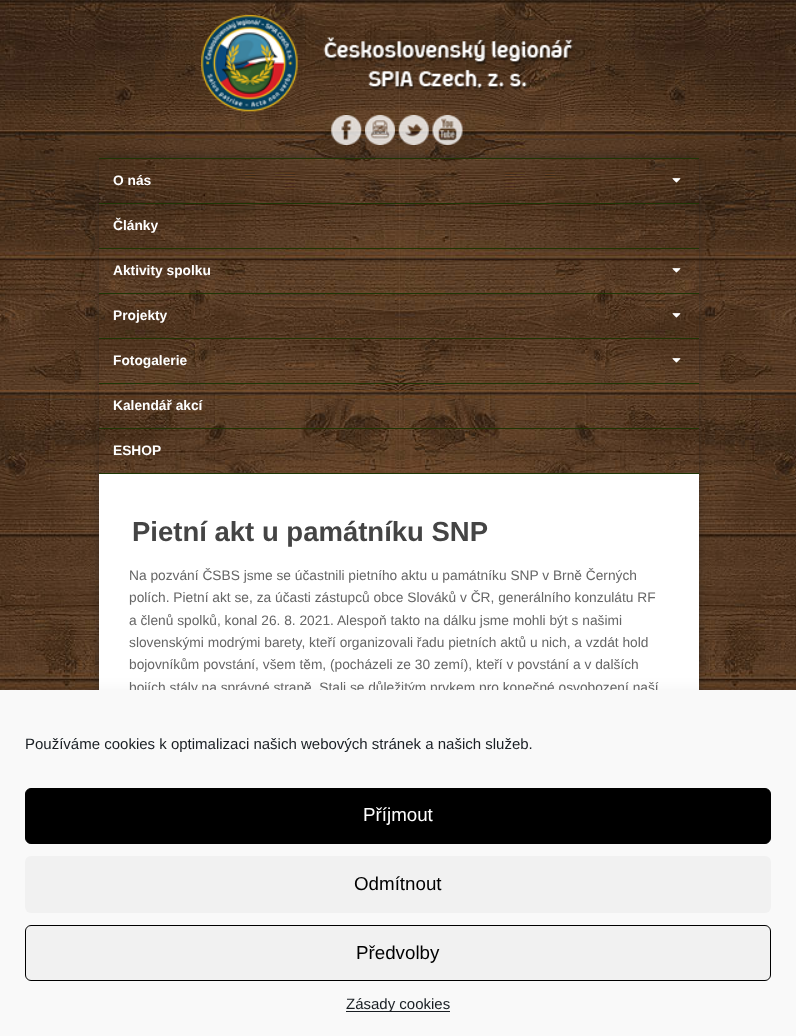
<!DOCTYPE html>
<meta charset="utf-8">
<style>body { margin: 0 } canvas { display: block }</style>
<canvas id="canvas" width="796" height="1036"></canvas>
<script type="module">
  const canvas = document.getElementById("canvas");
  const ctx = canvas.getContext("2d");
  ctx.miterLimit = 4;
  ctx.fontKerning = "normal";
  async function loadImage(src) {
    const img = new Image();
    img.src = src;
    await img.decode();
    return img;
  }

  ctx.fillStyle = "#ffffff";
  ctx.fillRect(0, 0, 796, 1036);
  ctx.drawImage(await loadImage("img1.png"), 0, 0, 796, 690);
  ctx.drawImage(await loadImage("img2.png"), 201, 14, 373, 98);
  ctx.save();
  ctx.beginPath();
  ctx.moveTo(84, 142);
  ctx.lineTo(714, 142);
  ctx.lineTo(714, 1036);
  ctx.lineTo(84, 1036);
  ctx.closePath();
  ctx.moveTo(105, 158);
  ctx.lineTo(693, 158);
  ctx.bezierCurveTo(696.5, 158, 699, 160.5, 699, 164);
  ctx.lineTo(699, 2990);
  ctx.lineTo(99, 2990);
  ctx.lineTo(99, 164);
  ctx.bezierCurveTo(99, 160.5, 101.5, 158, 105, 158);
  ctx.closePath();
  ctx.clip("evenodd");
  ctx.fillStyle = "#222222";
  ctx.filter = "blur(6px)";
  ctx.beginPath();
  ctx.roundRect(103, 161, 592, 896, 2.5);
  ctx.fill();
  ctx.filter = "none";
  ctx.restore();
  ctx.drawImage(await loadImage("img3.png"), 331, 115, 31, 30);
  ctx.drawImage(await loadImage("img4.png"), 365, 115, 30, 30);
  ctx.drawImage(await loadImage("img5.png"), 398, 115, 31, 30);
  ctx.drawImage(await loadImage("img6.png"), 432, 115, 31, 30);
  ctx.fillStyle = "#1e3605";
  ctx.fillRect(99, 158, 600, 1);
  ctx.fillRect(99, 203, 600, 1);
  ctx.font = "bold 13.75px Liberation Sans";
  ctx.fillStyle = "#ffffff";
  ctx.fillText("O nás", 113, 185);
  ctx.drawImage(await loadImage("img7.png"), 672, 178, 9, 5);
  ctx.fillStyle = "#1e3605";
  ctx.fillRect(99, 248, 600, 1);
  ctx.fillStyle = "#ffffff";
  ctx.fillText("Články", 113, 230);
  ctx.fillStyle = "#1e3605";
  ctx.fillRect(99, 293, 600, 1);
  ctx.fillStyle = "#ffffff";
  ctx.fillText("Aktivity spolku", 113, 275);
  ctx.drawImage(await loadImage("img8.png"), 672, 268, 9, 5);
  ctx.fillStyle = "#1e3605";
  ctx.fillRect(99, 338, 600, 1);
  ctx.fillStyle = "#ffffff";
  ctx.fillText("Projekty", 113, 320);
  ctx.drawImage(await loadImage("img9.png"), 672, 313, 9, 5);
  ctx.fillStyle = "#1e3605";
  ctx.fillRect(99, 383, 600, 1);
  ctx.fillStyle = "#ffffff";
  ctx.fillText("Fotogalerie", 113, 365);
  ctx.drawImage(await loadImage("img10.png"), 672, 358, 9, 5);
  ctx.fillStyle = "#1e3605";
  ctx.fillRect(99, 428, 600, 1);
  ctx.fillStyle = "#ffffff";
  ctx.fillText("Kalendář akcí", 113, 410);
  ctx.fillStyle = "#1e3605";
  ctx.fillRect(99, 473, 600, 1);
  ctx.fillStyle = "#ffffff";
  ctx.fillText("ESHOP", 113, 455);
  ctx.fillRect(99, 474, 600, 216);
  ctx.font = "bold 27.5px Liberation Sans";
  ctx.fillStyle = "#444444";
  ctx.fillText("Pietní akt u památníku SNP", 132, 541);
  ctx.font = "13.75px Liberation Sans";
  ctx.fillStyle = "#666666";
  ctx.fillText("Na pozvání ČSBS jsme se účastnili pietního aktu u památníku SNP v Brně Černých", 129, 580);
  ctx.fillText("polích. Pietní akt se, za účasti zástupců obce Slováků v ČR, generálního konzulátu RF", 129, 602);
  ctx.fillText("a členů spolků, konal 26. 8. 2021. Alespoň takto na dálku jsme mohli být s našimi", 129, 625);
  ctx.fillText("slovenskými modrými barety, kteří organizovali řadu pietních aktů u nich, a vzdát hold", 129, 647);
  ctx.fillText("bojovníkům povstání, všem těm, (pocházeli ze 30 zemí), kteří v povstání a v dalších", 129, 669);
  ctx.fillText("bojích stály na správné straně. Stali se důležitým prvkem pro konečné osvobození naší", 129, 692);
  ctx.fillStyle = "rgba(0, 0, 0, 0.19)";
  ctx.filter = "blur(12.5px)";
  ctx.beginPath();
  ctx.rect(0, 703, 796, 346);
  ctx.fill();
  ctx.filter = "none";
  ctx.fillStyle = "#f9f9f9";
  ctx.fillRect(0, 690, 796, 346);
  ctx.font = "15px Liberation Sans";
  ctx.fillStyle = "#191e23";
  ctx.fillText("Používáme cookies k optimalizaci našich webových stránek a našich služeb.", 25, 749);
  ctx.fillStyle = "#000000";
  ctx.beginPath();
  ctx.roundRect(25.5, 788.5, 745, 55, 5.5);
  ctx.fill();
  ctx.strokeStyle = "#000000";
  ctx.stroke();
  ctx.font = "18.75px Liberation Sans";
  ctx.fillStyle = "#ffffff";
  ctx.fillText("Příjmout", 363, 821);
  ctx.fillStyle = "#f1f1f1";
  ctx.beginPath();
  ctx.roundRect(25, 856, 746, 57, 6);
  ctx.fill();
  ctx.fillStyle = "#000000";
  ctx.fillText("Odmítnout", 354, 890);
  ctx.fillStyle = "#f1f1f1";
  ctx.beginPath();
  ctx.roundRect(25.5, 925.5, 745, 55, 5.5);
  ctx.fill();
  ctx.stroke();
  ctx.fillStyle = "#000000";
  ctx.fillText("Předvolby", 356, 959);
  ctx.fillStyle = "#191e23";
  ctx.fillRect(346, 1011, 104, 1);
  ctx.font = "15px Liberation Sans";
  ctx.fillText("Zásady cookies", 346, 1009);
</script>
